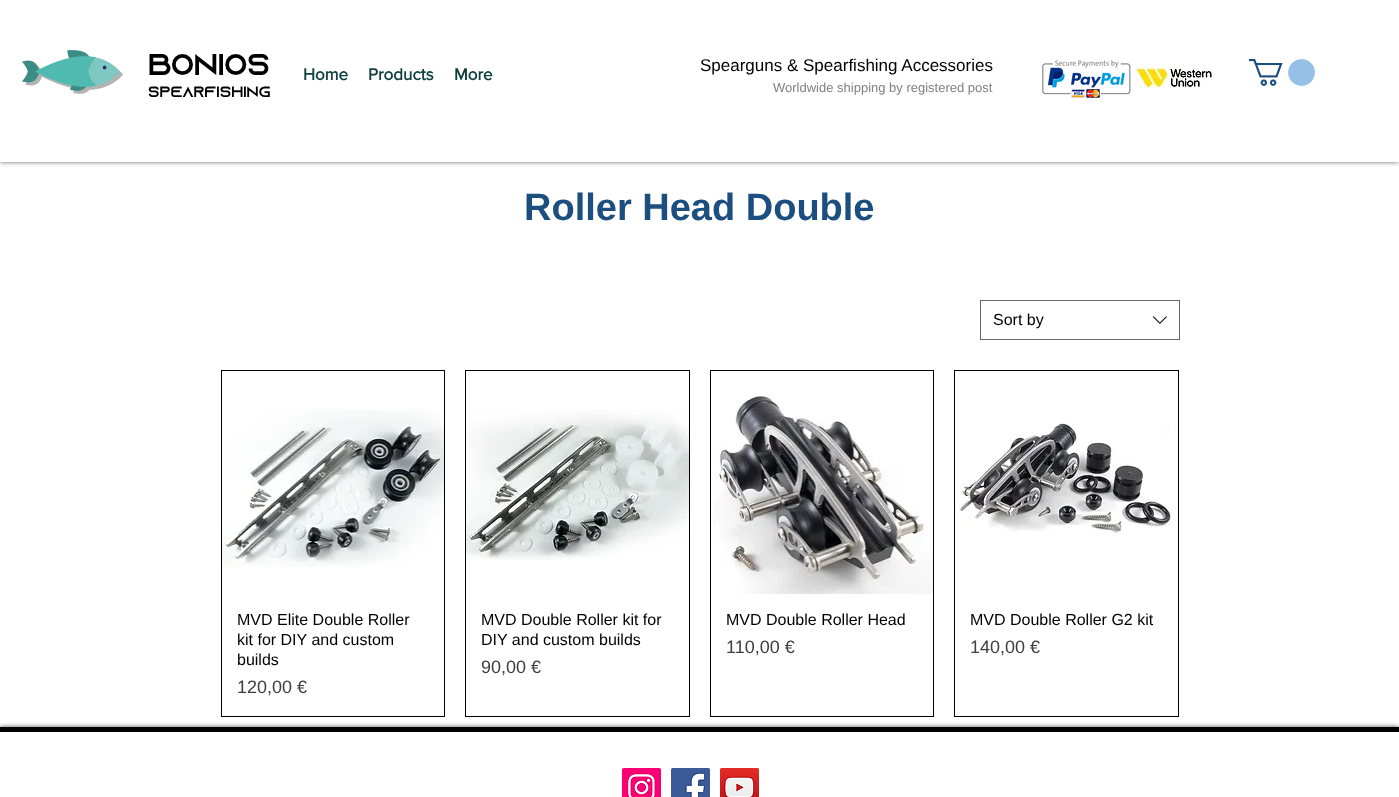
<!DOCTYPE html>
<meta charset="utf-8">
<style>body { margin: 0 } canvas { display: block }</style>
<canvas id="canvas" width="1399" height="797"></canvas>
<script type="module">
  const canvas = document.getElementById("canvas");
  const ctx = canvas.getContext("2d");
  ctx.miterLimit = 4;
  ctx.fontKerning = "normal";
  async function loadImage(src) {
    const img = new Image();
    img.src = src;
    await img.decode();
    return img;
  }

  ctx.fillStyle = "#ffffff";
  ctx.fillRect(0, 0, 1399, 797);
  ctx.fillStyle = "rgba(0, 0, 0, 0.6)";
  ctx.filter = "blur(2.5px)";
  ctx.beginPath();
  ctx.rect(0, 0, 1399, 162);
  ctx.fill();
  ctx.filter = "none";
  ctx.fillStyle = "#ffffff";
  ctx.fillRect(0, 0, 1399, 162);
  ctx.drawImage(await loadImage("img1.png"), 22, 50, 101, 44);
  ctx.font = "30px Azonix";
  ctx.fillStyle = "#000000";
  ctx.fillText("BONIOS", 148, 75);
  ctx.font = "15px Azonix";
  ctx.fillText("SPEARFISHING", 148, 97);
  ctx.font = "bold 17px 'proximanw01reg'";
  ctx.fillStyle = "#0e403e";
  ctx.fillText("Home", 303, 80);
  ctx.fillText("Products", 368, 80);
  ctx.fillText("More", 454, 80);
  ctx.font = "17px Liberation Sans";
  ctx.fillStyle = "#000000";
  ctx.fillText("Spearguns & Spearfishing Accessories", 700, 71);
  ctx.font = "13px Liberation Sans";
  ctx.fillStyle = "#808080";
  ctx.fillText("Worldwide shipping by registered post", 773, 92);
  ctx.drawImage(await loadImage("img2.png"), 1042, 60, 89, 38);
  ctx.drawImage(await loadImage("img3.png"), 1135, 64, 78, 25);
  ctx.drawImage(await loadImage("img4.png"), 1249, 59, 66, 27);
  ctx.font = "bold 38px Liberation Sans";
  ctx.fillStyle = "#1c4f80";
  ctx.fillText("Roller Head Double", 524, 220);
  ctx.strokeStyle = "#666666";
  ctx.strokeRect(980.5, 300.5, 199, 39);
  ctx.font = "16px Liberation Sans";
  ctx.fillStyle = "#000000";
  ctx.fillText("Sort by", 993, 325);
  ctx.drawImage(await loadImage("img5.png"), 1152, 316, 15, 8);
  ctx.strokeStyle = "#000000";
  ctx.strokeRect(221.5, 370.5, 223, 346);
  ctx.drawImage(await loadImage("img6.png"), 222, 409, 222, 158);
  ctx.fillText("MVD Elite Double Roller", 237, 625);
  ctx.fillText("kit for DIY and custom", 237, 645);
  ctx.fillText("builds", 237, 665);
  ctx.font = "18px Liberation Sans";
  ctx.fillStyle = "#404040";
  ctx.fillText("120,00 €", 237, 693);
  ctx.strokeRect(465.5, 370.5, 224, 346);
  ctx.drawImage(await loadImage("img7.png"), 466, 410, 223, 150);
  ctx.font = "16px Liberation Sans";
  ctx.fillStyle = "#000000";
  ctx.fillText("MVD Double Roller kit for", 481, 625);
  ctx.fillText("DIY and custom builds", 481, 645);
  ctx.font = "18px Liberation Sans";
  ctx.fillStyle = "#404040";
  ctx.fillText("90,00 €", 481, 673);
  ctx.strokeRect(710.5, 370.5, 223, 346);
  ctx.drawImage(await loadImage("img8.png"), 713, 395, 220, 199);
  ctx.font = "16px Liberation Sans";
  ctx.fillStyle = "#000000";
  ctx.fillText("MVD Double Roller Head", 726, 625);
  ctx.font = "18px Liberation Sans";
  ctx.fillStyle = "#404040";
  ctx.fillText("110,00 €", 726, 653);
  ctx.strokeRect(954.5, 370.5, 224, 346);
  ctx.drawImage(await loadImage("img9.png"), 959, 423, 212, 111);
  ctx.font = "16px Liberation Sans";
  ctx.fillStyle = "#000000";
  ctx.fillText("MVD Double Roller G2 kit", 970, 625);
  ctx.font = "18px Liberation Sans";
  ctx.fillStyle = "#404040";
  ctx.fillText("140,00 €", 970, 653);
  ctx.save();
  ctx.beginPath();
  ctx.rect(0, 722, 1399, 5);
  ctx.clip();
  ctx.fillStyle = "rgba(0, 0, 0, 0.7)";
  ctx.filter = "blur(2.5px)";
  ctx.beginPath();
  ctx.rect(0, 727, 1399, 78);
  ctx.fill();
  ctx.filter = "none";
  ctx.restore();
  ctx.fillStyle = "#000000";
  ctx.fillRect(0, 727, 1399, 5);
  ctx.drawImage(await loadImage("img10.png"), 622, 768, 39, 29);
  ctx.drawImage(await loadImage("img11.png"), 671, 768, 39, 29);
  ctx.drawImage(await loadImage("img12.png"), 720, 768, 39, 29);
</script>
